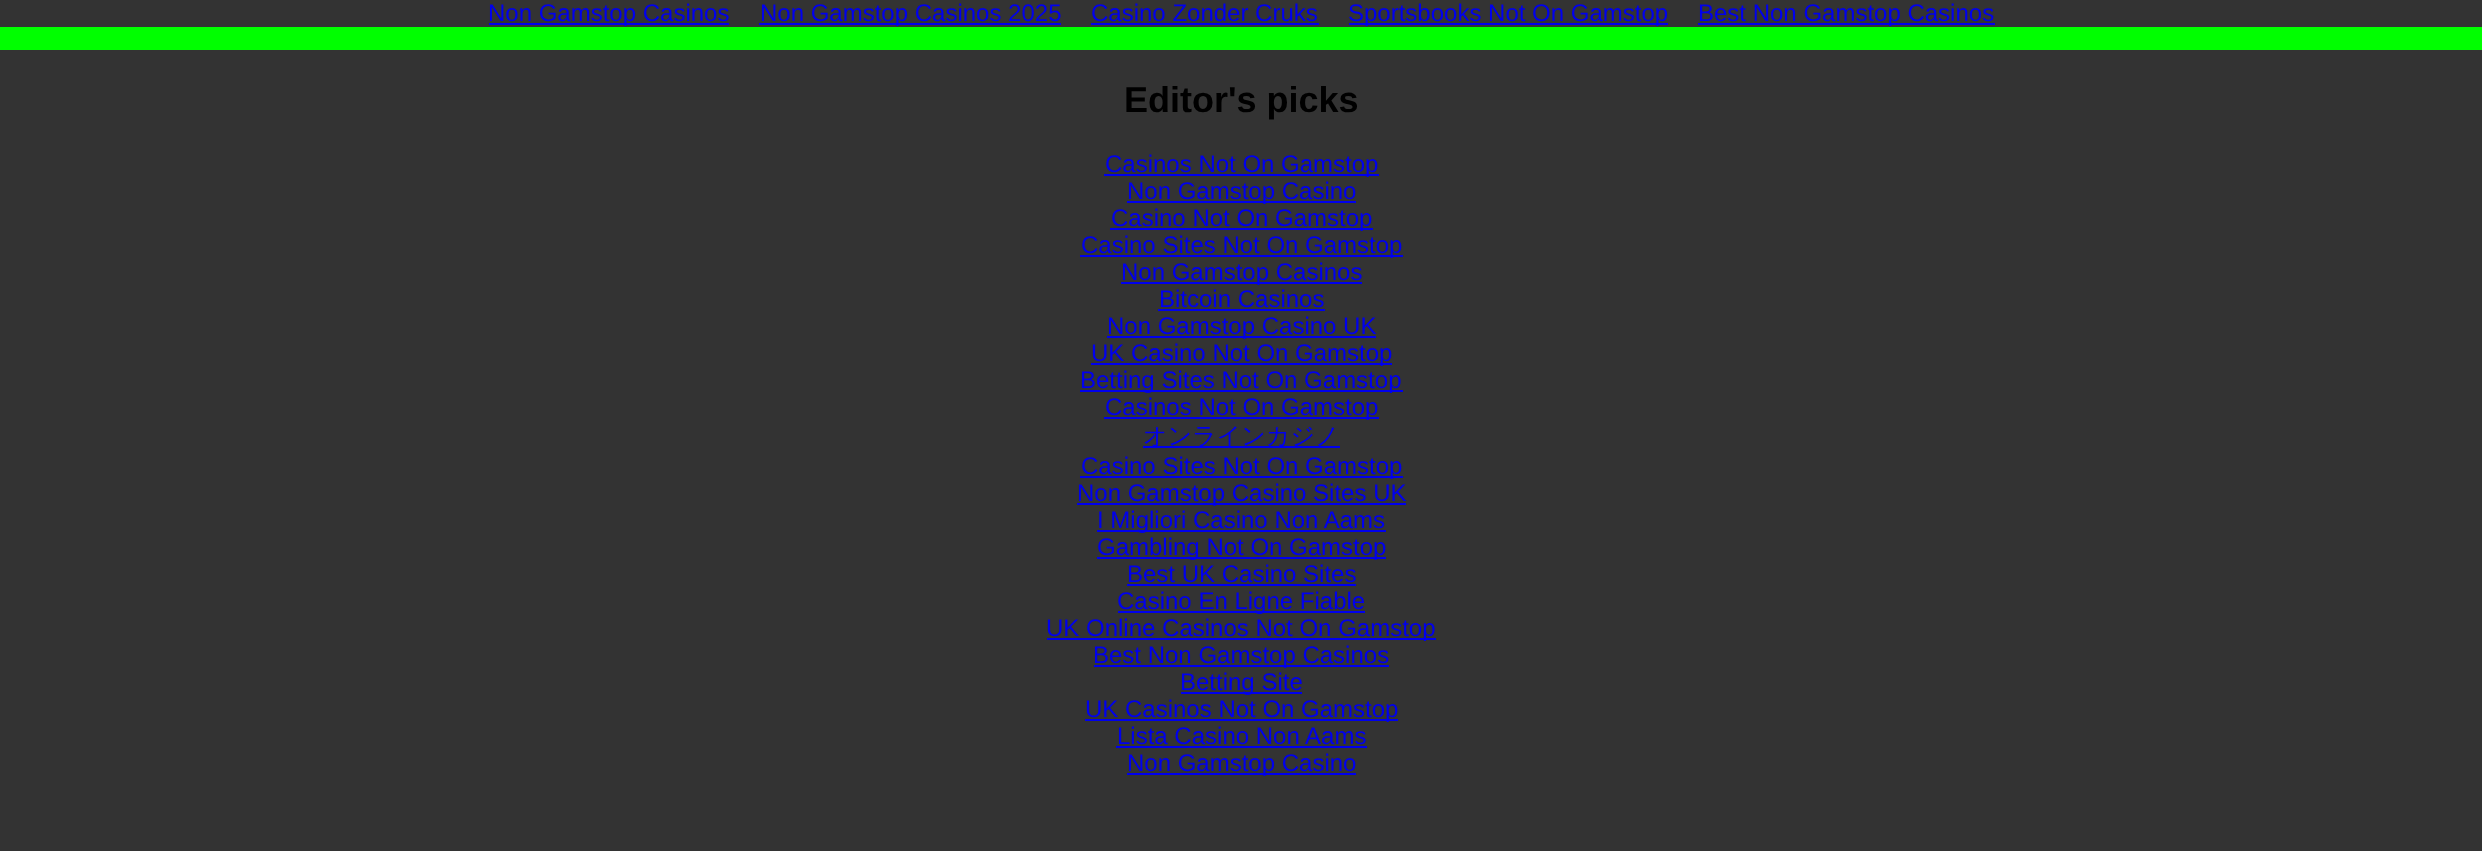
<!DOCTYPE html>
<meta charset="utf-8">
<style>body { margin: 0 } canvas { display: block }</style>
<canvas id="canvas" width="2482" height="851"></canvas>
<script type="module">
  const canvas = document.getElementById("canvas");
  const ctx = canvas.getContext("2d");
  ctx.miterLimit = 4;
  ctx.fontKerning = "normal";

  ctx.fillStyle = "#333333";
  ctx.fillRect(0, 0, 2482, 851);
  ctx.fillStyle = "#0000ee";
  ctx.fillRect(489, 23, 240, 2);
  ctx.font = "24px Liberation Sans";
  ctx.fillText("Non Gamstop Casinos", 488, 21);
  ctx.fillRect(759, 23, 302, 2);
  ctx.fillText("Non Gamstop Casinos 2025", 760, 21);
  ctx.fillText("Casino Zonder Cruks", 1091, 21);
  ctx.fillRect(1091, 23, 228, 2);
  ctx.fillRect(1349, 23, 319, 2);
  ctx.fillText("Sportsbooks Not On Gamstop", 1348, 21);
  ctx.fillRect(1698, 23, 297, 2);
  ctx.fillText("Best Non Gamstop Casinos", 1698, 21);
  ctx.fillStyle = "#00ff00";
  ctx.fillRect(0, 27, 2482, 23);
  ctx.font = "bold 36px Liberation Sans";
  ctx.fillStyle = "#000000";
  ctx.fillText("Editor's picks", 1124, 112);
  ctx.fillStyle = "#0000ee";
  ctx.fillRect(1104, 174, 275, 2);
  ctx.font = "24px Liberation Sans";
  ctx.fillText("Casinos Not On Gamstop", 1105, 172);
  ctx.fillRect(1127, 201, 229, 2);
  ctx.fillText("Non Gamstop Casino", 1127, 199);
  ctx.fillRect(1110, 228, 263, 2);
  ctx.fillText("Casino Not On Gamstop", 1111, 226);
  ctx.fillRect(1080, 255, 323, 2);
  ctx.fillText("Casino Sites Not On Gamstop", 1081, 253);
  ctx.fillRect(1121, 282, 241, 2);
  ctx.fillText("Non Gamstop Casinos", 1121, 280);
  ctx.fillText("Bitcoin Casinos", 1159, 307);
  ctx.fillRect(1158, 309, 167, 2);
  ctx.fillRect(1107, 336, 269, 2);
  ctx.fillText("Non Gamstop Casino UK", 1107, 334);
  ctx.fillRect(1091, 363, 301, 2);
  ctx.fillText("UK Casino Not On Gamstop", 1091, 361);
  ctx.fillRect(1080, 390, 323, 2);
  ctx.fillText("Betting Sites Not On Gamstop", 1080, 388);
  ctx.fillRect(1104, 417, 275, 2);
  ctx.fillText("Casinos Not On Gamstop", 1105, 415);
  ctx.fillRect(1143, 446, 197, 2);
  ctx.font = "500 24px WenQuanYi Zen Hei";
  ctx.fillText("オンラインカジノ", 1143, 444);
  ctx.fillRect(1080, 476, 323, 2);
  ctx.font = "24px Liberation Sans";
  ctx.fillText("Casino Sites Not On Gamstop", 1081, 474);
  ctx.fillRect(1077, 503, 329, 2);
  ctx.fillText("Non Gamstop Casino Sites UK", 1077, 501);
  ctx.fillRect(1097, 530, 289, 2);
  ctx.fillText("I Migliori Casino Non Aams", 1097, 528);
  ctx.fillRect(1097, 557, 289, 2);
  ctx.fillText("Gambling Not On Gamstop", 1097, 555);
  ctx.fillText("Best UK Casino Sites", 1127, 582);
  ctx.fillRect(1127, 584, 229, 2);
  ctx.fillRect(1118, 611, 247, 2);
  ctx.fillText("Casino En Ligne Fiable", 1117, 609);
  ctx.fillRect(1047, 638, 389, 2);
  ctx.fillText("UK Online Casinos Not On Gamstop", 1046, 636);
  ctx.fillRect(1094, 665, 295, 2);
  ctx.fillText("Best Non Gamstop Casinos", 1093, 663);
  ctx.fillRect(1181, 692, 121, 2);
  ctx.fillText("Betting Site", 1180, 690);
  ctx.fillRect(1085, 719, 313, 2);
  ctx.fillText("UK Casinos Not On Gamstop", 1085, 717);
  ctx.fillText("Lista Casino Non Aams", 1117, 744);
  ctx.fillRect(1116, 746, 251, 2);
  ctx.fillRect(1127, 773, 229, 2);
  ctx.fillText("Non Gamstop Casino", 1127, 771);
</script>
